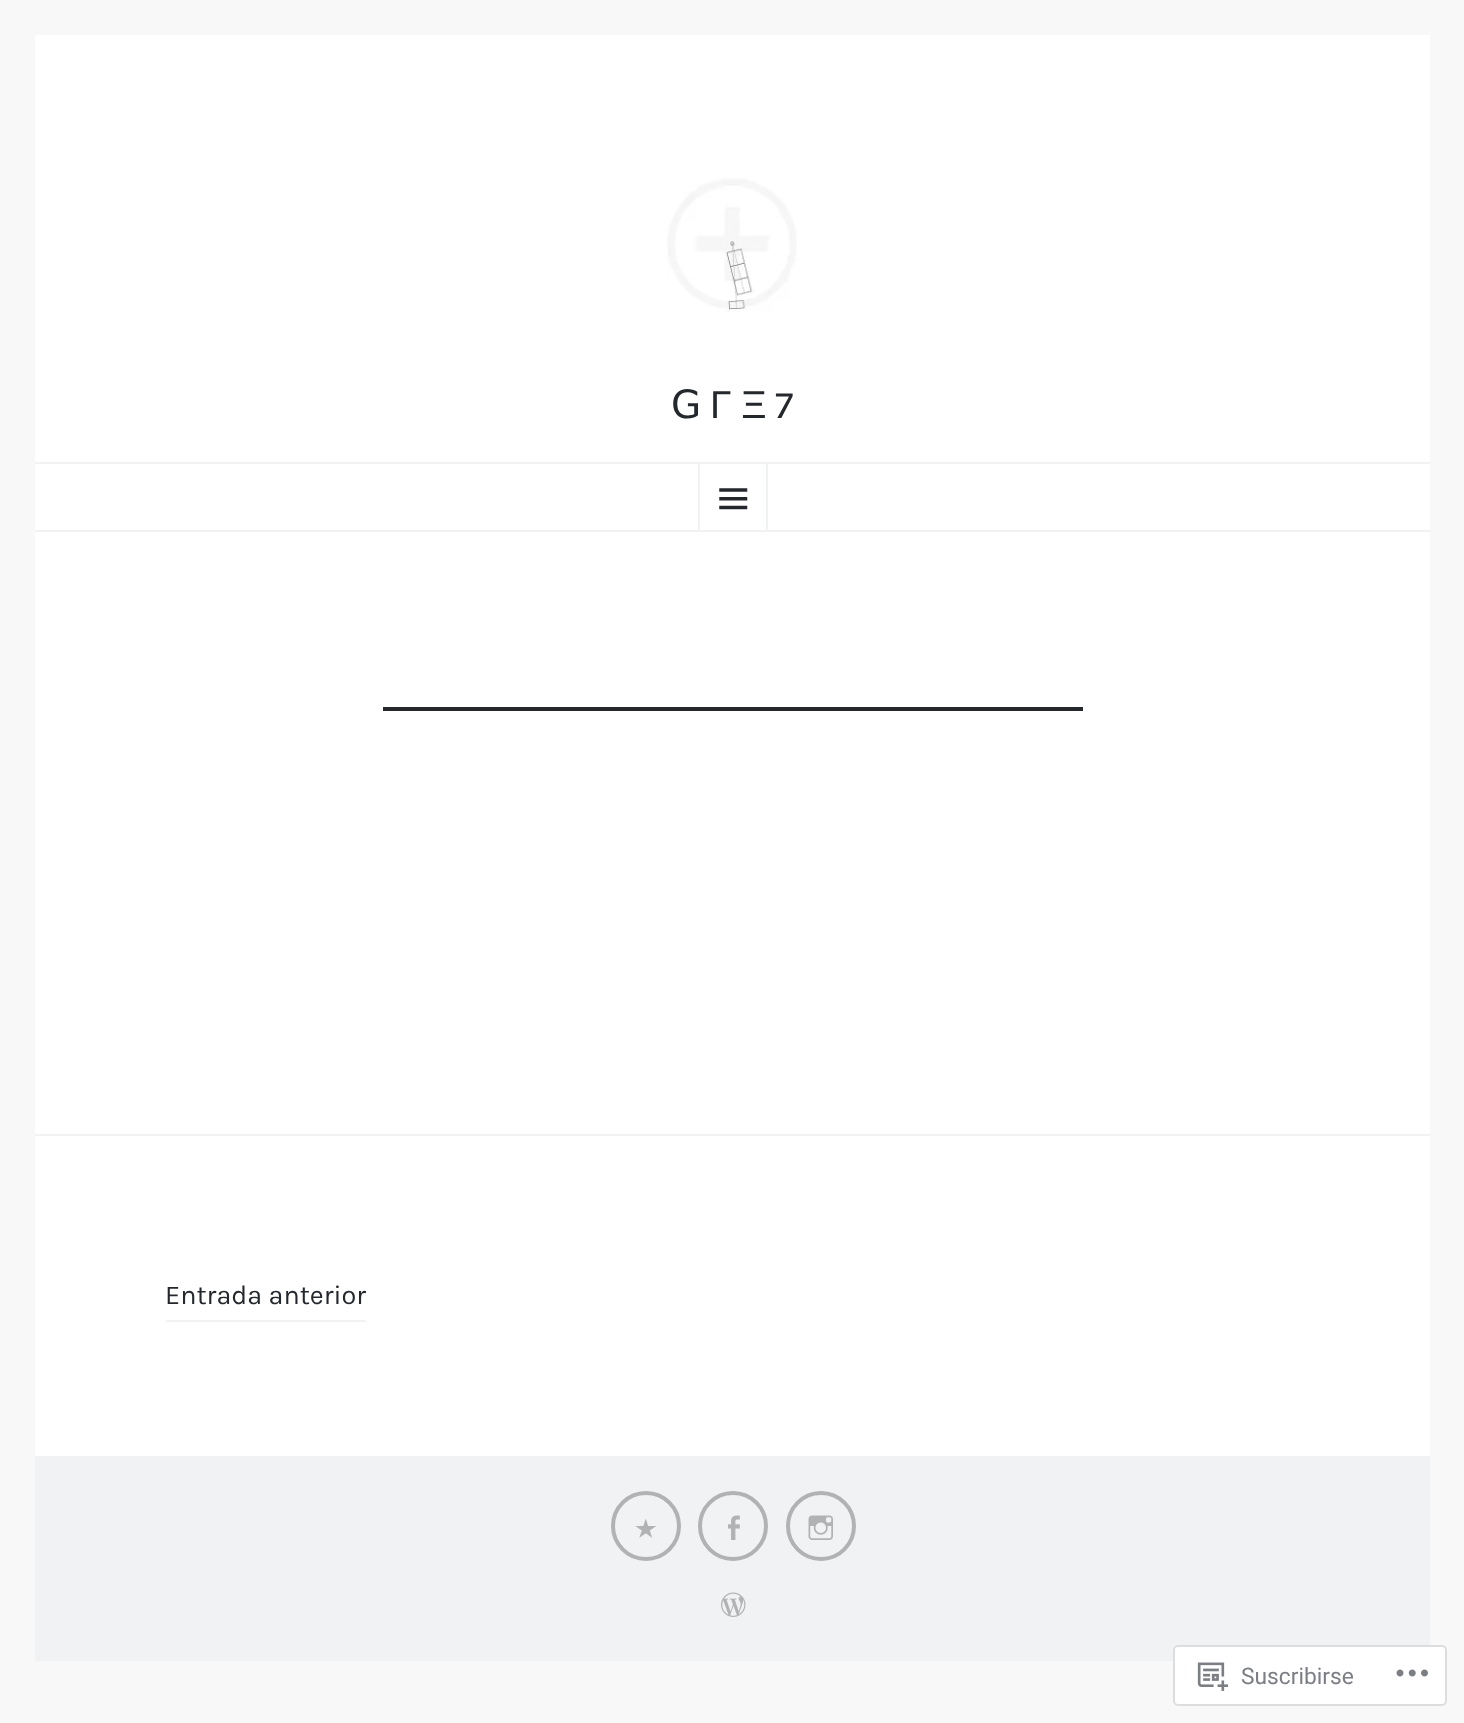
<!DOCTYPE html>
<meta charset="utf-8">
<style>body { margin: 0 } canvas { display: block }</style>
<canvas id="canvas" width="1464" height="1723"></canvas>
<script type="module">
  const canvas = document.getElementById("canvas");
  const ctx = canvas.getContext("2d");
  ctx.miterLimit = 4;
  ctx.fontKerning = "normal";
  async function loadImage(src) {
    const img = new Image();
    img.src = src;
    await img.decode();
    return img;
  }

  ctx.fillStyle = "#f8f8f8";
  ctx.fillRect(0, 0, 1464, 1723);
  ctx.fillStyle = "#ffffff";
  ctx.fillRect(35, 35, 1395, 1421);
  ctx.drawImage(await loadImage("img1.png"), 667, 178, 130, 134);
  ctx.font = "39px DejaVu Sans";
  ctx.fillStyle = "#24282d";
  ctx.fillText("𝖦", 671, 418);
  ctx.wordSpacing = "-1px";
  ctx.font = "39px Liberation Sans";
  ctx.fillText("Γ Ξ", 710, 418);
  ctx.wordSpacing = "0px";
  ctx.font = "39px Karla";
  ctx.fillText("7", 775, 418);
  ctx.fillStyle = "#f1f2f3";
  ctx.fillRect(35, 462, 1395, 2);
  ctx.fillRect(35, 530, 1395, 2);
  ctx.strokeStyle = "#f1f2f3";
  ctx.lineWidth = 2;
  ctx.strokeRect(699, 463, 68, 68);
  ctx.drawImage(await loadImage("img2.png"), 719, 488, 29, 22);
  ctx.fillStyle = "#24282d";
  ctx.fillRect(383, 707, 700, 4);
  ctx.fillStyle = "#f1f2f3";
  ctx.fillRect(35, 1134, 1395, 2);
  ctx.font = "27px Karla";
  ctx.fillStyle = "#24282d";
  ctx.fillText("Entrada anterior", 165, 1304);
  ctx.fillStyle = "#f1f2f3";
  ctx.fillRect(166, 1320, 200, 2);
  ctx.fillRect(35, 1456, 1395, 205);
  ctx.beginPath();
  ctx.arc(646, 1526, 33, 0, Math.PI * 2);
  ctx.strokeStyle = "#b1b2b3";
  ctx.lineWidth = 4;
  ctx.stroke();
  ctx.drawImage(await loadImage("img3.png"), 635, 1519, 21, 19);
  ctx.beginPath();
  ctx.arc(733, 1526, 33, 0, Math.PI * 2);
  ctx.stroke();
  ctx.drawImage(await loadImage("img4.png"), 728, 1515, 12, 25);
  ctx.beginPath();
  ctx.arc(821, 1526, 33, 0, Math.PI * 2);
  ctx.stroke();
  ctx.drawImage(await loadImage("img5.png"), 808, 1515, 25, 25);
  ctx.drawImage(await loadImage("img6.png"), 721, 1592, 25, 25);
  ctx.fillStyle = "rgba(255, 255, 255, 0.98)";
  ctx.beginPath();
  ctx.roundRect(1173, 1645, 274, 61, 5);
  ctx.fill();
  ctx.beginPath();
  ctx.roundRect(1174, 1646, 272, 59, 4);
  ctx.strokeStyle = "rgba(220, 220, 222, 0.98)";
  ctx.lineWidth = 2;
  ctx.stroke();
  ctx.drawImage(await loadImage("img7.png"), 1197, 1662, 32, 29);
  ctx.font = "22.75px Roboto";
  ctx.fillStyle = "#7b7e84";
  ctx.fillText("Suscribirse", 1241, 1684);
  ctx.drawImage(await loadImage("img8.png"), 1396, 1669, 32, 8);
</script>
